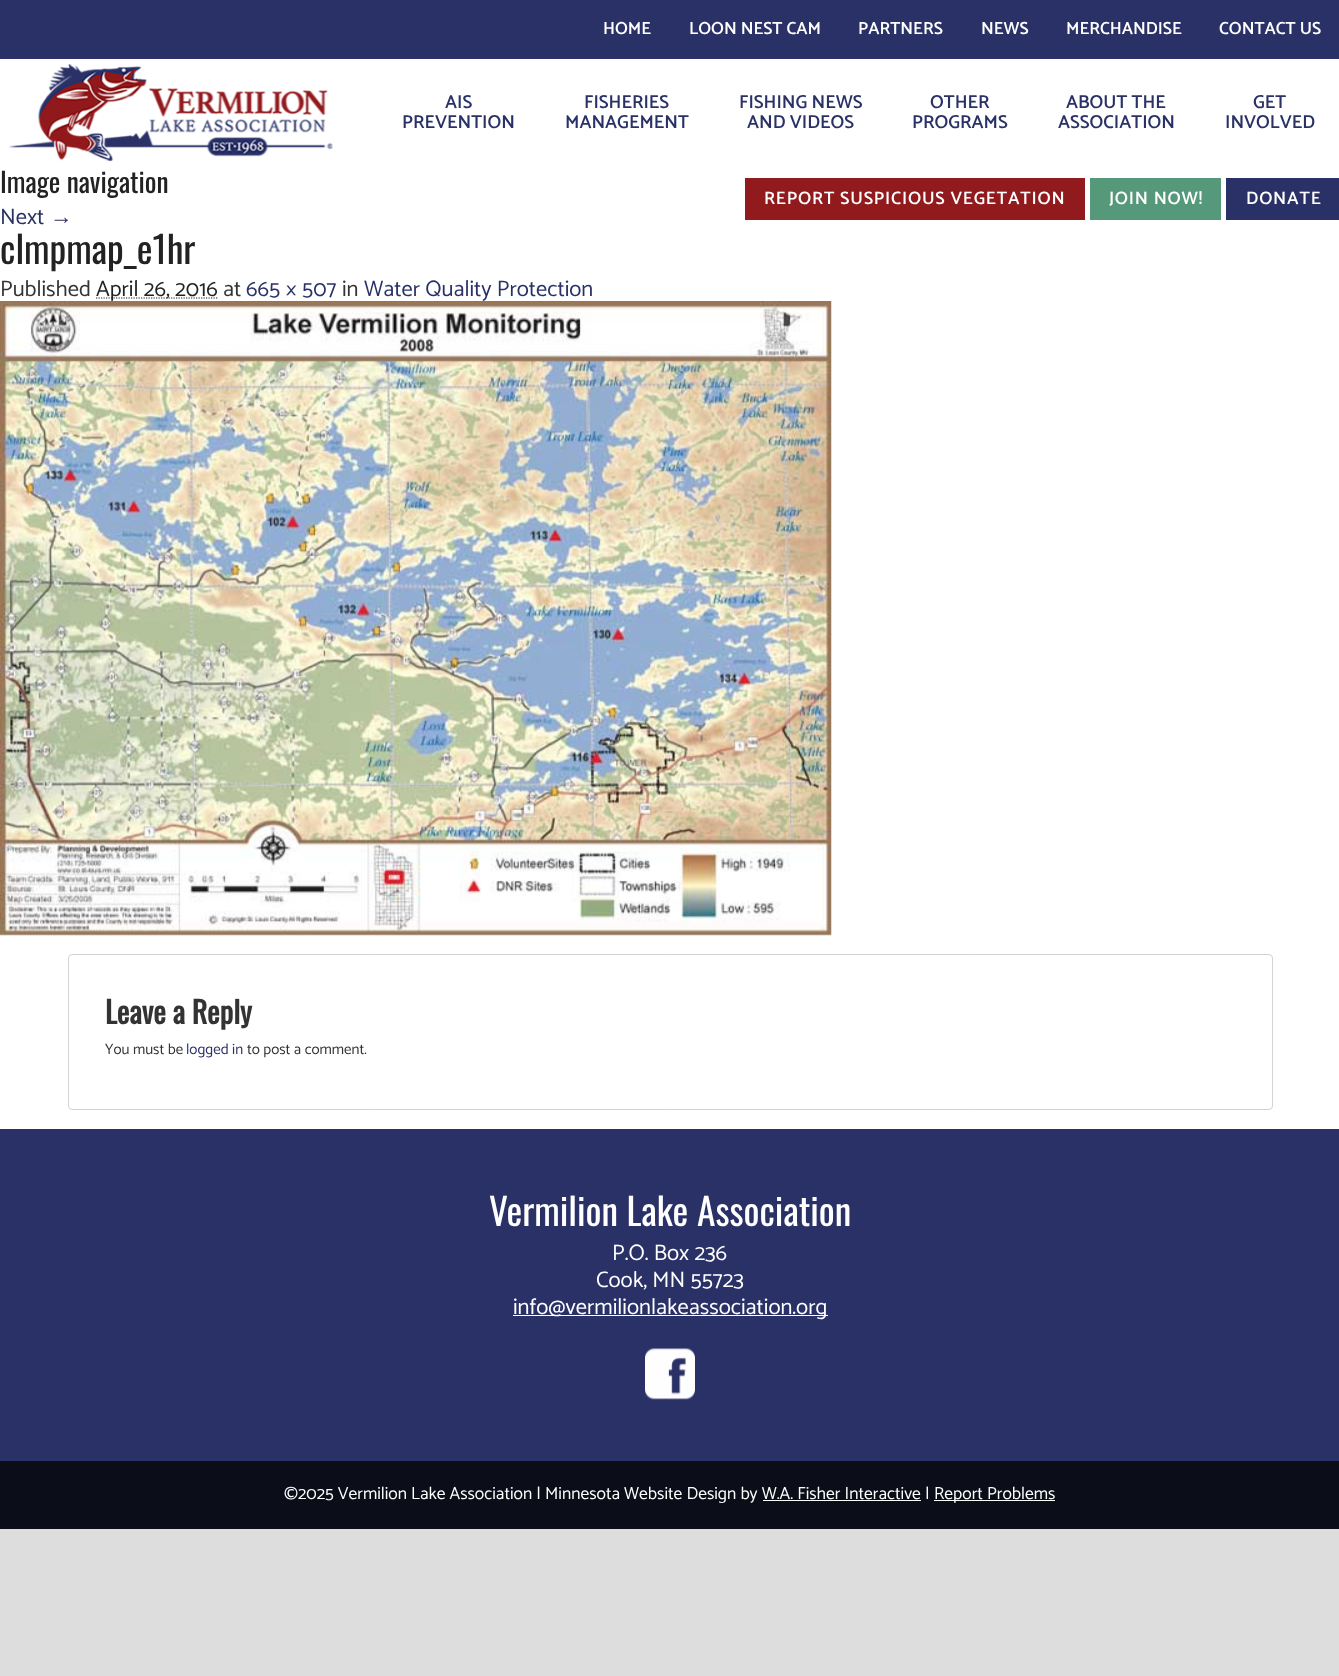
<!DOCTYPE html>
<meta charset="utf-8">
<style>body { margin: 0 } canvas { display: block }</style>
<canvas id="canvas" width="1339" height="1676"></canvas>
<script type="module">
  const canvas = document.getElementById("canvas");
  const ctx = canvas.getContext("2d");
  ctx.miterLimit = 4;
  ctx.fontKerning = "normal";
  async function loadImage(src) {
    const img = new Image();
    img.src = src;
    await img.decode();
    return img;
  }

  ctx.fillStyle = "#dddddd";
  ctx.fillRect(0, 0, 1339, 1676);
  ctx.fillStyle = "#ffffff";
  ctx.fillRect(0, 59, 1339, 1070);
  ctx.fillStyle = "#2a3167";
  ctx.fillRect(0, 0, 1339, 59);
  ctx.font = "600 17.5px Catamaran";
  ctx.fillStyle = "#ffffff";
  ctx.fillText("HOME", 603, 34);
  ctx.fillText("LOON NEST CAM", 689, 34);
  ctx.fillText("PARTNERS", 858, 34);
  ctx.fillText("NEWS", 981, 34);
  ctx.fillText("MERCHANDISE", 1066, 34);
  ctx.fillText("CONTACT US", 1219, 34);
  ctx.drawImage(await loadImage("img1.png"), 9, 64, 324, 98);
  ctx.font = "600 18.75px Catamaran";
  ctx.fillStyle = "#2a3167";
  ctx.fillText("AIS", 445, 108);
  ctx.fillText("PREVENTION", 402, 128);
  ctx.fillText("FISHERIES", 584, 108);
  ctx.fillText("MANAGEMENT", 565, 128);
  ctx.fillText("FISHING NEWS", 739, 108);
  ctx.fillText("AND VIDEOS", 747, 128);
  ctx.fillText("OTHER", 930, 108);
  ctx.fillText("PROGRAMS", 912, 128);
  ctx.fillText("ABOUT THE", 1066, 108);
  ctx.fillText("ASSOCIATION", 1058, 128);
  ctx.fillText("GET", 1253, 108);
  ctx.fillText("INVOLVED", 1225, 128);
  ctx.fillStyle = "#911a1d";
  ctx.fillRect(745, 178, 340, 42);
  ctx.letterSpacing = "0.8px";
  ctx.font = "600 18px Catamaran";
  ctx.fillStyle = "#ffffff";
  ctx.fillText("REPORT SUSPICIOUS VEGETATION", 764, 204);
  ctx.fillStyle = "#56997a";
  ctx.fillRect(1090, 178, 131, 42);
  ctx.fillStyle = "#ffffff";
  ctx.fillText("JOIN NOW!", 1109, 204);
  ctx.fillStyle = "#2a3167";
  ctx.fillRect(1226, 178, 113, 42);
  ctx.fillStyle = "#ffffff";
  ctx.fillText("DONATE", 1246, 204);
  ctx.letterSpacing = "0px";
  ctx.font = "27.5px Oswald";
  ctx.fillStyle = "#222222";
  ctx.fillText("Image navigation", 0, 193);
  ctx.font = "22.5px Catamaran";
  ctx.fillStyle = "#2a3167";
  ctx.fillText("Next", 0, 224);
  ctx.font = "22.5px Liberation Sans";
  ctx.fillText("→", 50, 224);
  ctx.font = "37.5px Oswald";
  ctx.fillStyle = "#222222";
  ctx.fillText("clmpmap_e1hr", 0, 264);
  ctx.font = "22.5px Catamaran";
  ctx.fillStyle = "#333333";
  ctx.fillText("Published", 0, 296);
  ctx.beginPath();
  ctx.moveTo(96, 298);
  ctx.lineTo(217.5, 298);
  ctx.strokeStyle = "#222222";
  ctx.lineWidth = 1.2;
  ctx.setLineDash([1.25, 1.25]);
  ctx.stroke();
  ctx.fillStyle = "#222222";
  ctx.fillText("April 26, 2016", 96, 296);
  ctx.fillStyle = "#333333";
  ctx.fillText("at", 223, 296);
  ctx.fillStyle = "#2a3167";
  ctx.fillText("665 × 507", 246, 296);
  ctx.fillStyle = "#333333";
  ctx.fillText("in", 342, 296);
  ctx.fillStyle = "#2a3167";
  ctx.fillText("Water Quality Protection", 364, 296);
  ctx.drawImage(await loadImage("img2.png"), 0, 301, 832, 635);
  ctx.beginPath();
  ctx.roundRect(68.5, 954.5, 1204, 155, 3.5);
  ctx.strokeStyle = "#d3d3d3";
  ctx.lineWidth = 1;
  ctx.setLineDash([]);
  ctx.stroke();
  ctx.font = "bold 30px Oswald";
  ctx.fillStyle = "#333333";
  ctx.fillText("Leave a Reply", 105, 1024);
  ctx.font = "15px Catamaran";
  ctx.fillText("You must be", 105, 1054);
  ctx.fillStyle = "#2a3167";
  ctx.fillText("logged in", 186, 1054);
  ctx.fillStyle = "#333333";
  ctx.fillText("to post a comment.", 247, 1054);
  ctx.fillStyle = "#2a3167";
  ctx.fillRect(0, 1129, 1339, 332);
  ctx.font = "37.5px Oswald";
  ctx.fillStyle = "#ffffff";
  ctx.fillText("Vermilion Lake Association", 489, 1226);
  ctx.font = "22.5px Catamaran";
  ctx.fillText("P.O. Box 236", 612, 1260);
  ctx.fillText("Cook, MN 55723", 596, 1287);
  ctx.fillRect(513, 1315, 315, 1);
  ctx.fillText("info@vermilionlakeassociation.org", 513, 1314);
  ctx.drawImage(await loadImage("img3.png"), 645, 1348, 50, 52);
  ctx.fillStyle = "#0b0e18";
  ctx.fillRect(0, 1461, 1339, 68);
  ctx.font = "17.5px Catamaran";
  ctx.fillStyle = "#ffffff";
  ctx.fillText("©2025 Vermilion Lake Association | Minnesota Website Design by W.A. Fisher Interactive |", 284, 1499);
  ctx.fillRect(934, 1500, 121, 1);
  ctx.fillText("Report Problems", 934, 1499);
  ctx.fillRect(763, 1500, 158, 1);
</script>
